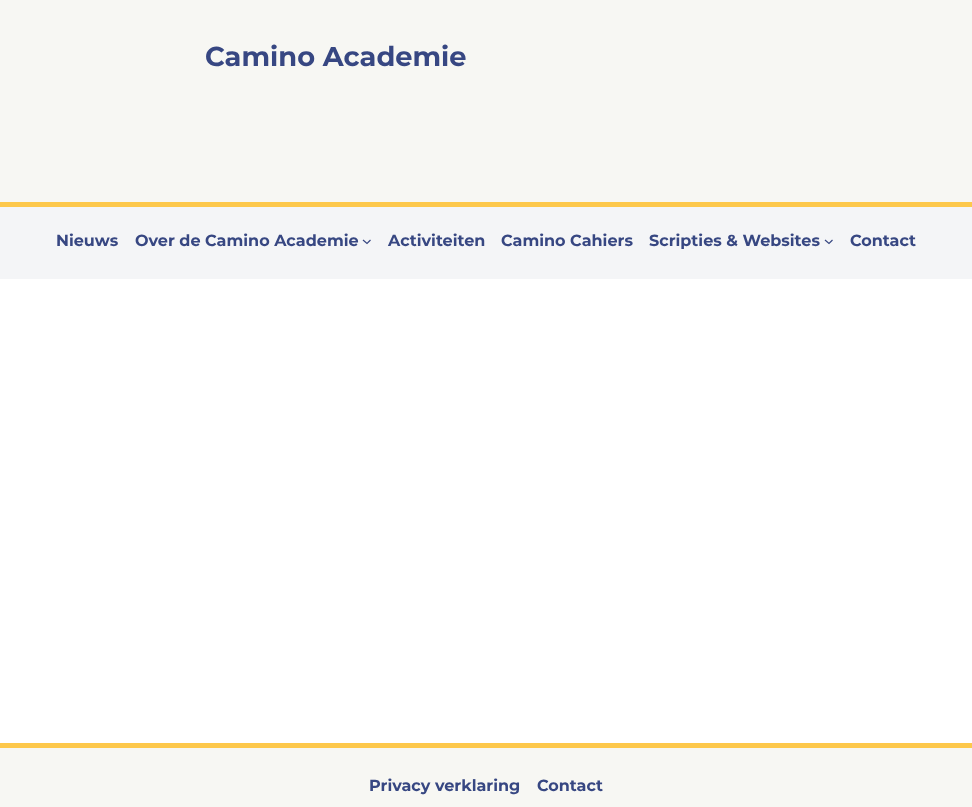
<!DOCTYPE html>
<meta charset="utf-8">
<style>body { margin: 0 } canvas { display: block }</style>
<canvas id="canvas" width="972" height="807"></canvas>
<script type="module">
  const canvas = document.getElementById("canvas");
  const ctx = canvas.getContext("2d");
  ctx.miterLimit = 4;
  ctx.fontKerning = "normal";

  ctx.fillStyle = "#ffffff";
  ctx.fillRect(0, 0, 972, 807);
  ctx.fillStyle = "#f7f7f3";
  ctx.fillRect(0, 0, 972, 202);
  ctx.fillStyle = "#fdc84b";
  ctx.fillRect(0, 202, 972, 5);
  ctx.font = "bold 27.25px Montserrat";
  ctx.fillStyle = "#374782";
  ctx.fillText("Camino Academie", 205, 66);
  ctx.fillStyle = "#f4f5f7";
  ctx.fillRect(0, 207, 972, 72);
  ctx.font = "bold 16px Montserrat";
  ctx.fillStyle = "#374782";
  ctx.fillText("Nieuws", 56, 246);
  ctx.fillText("Over de Camino Academie", 135, 246);
  ctx.beginPath();
  ctx.moveTo(363, 240);
  ctx.lineTo(367, 243.5);
  ctx.lineTo(370.5, 240);
  ctx.strokeStyle = "#374782";
  ctx.lineWidth = 1.2;
  ctx.stroke();
  ctx.fillText("Activiteiten", 388, 246);
  ctx.fillText("Camino Cahiers", 501, 246);
  ctx.fillText("Scripties & Websites", 649, 246);
  ctx.beginPath();
  ctx.moveTo(825, 240);
  ctx.lineTo(829, 243.5);
  ctx.lineTo(832.5, 240);
  ctx.stroke();
  ctx.fillText("Contact", 850, 246);
  ctx.fillStyle = "#f7f7f3";
  ctx.fillRect(0, 748, 972, 59);
  ctx.fillStyle = "#fdc84b";
  ctx.fillRect(0, 743, 972, 5);
  ctx.fillStyle = "#374782";
  ctx.fillText("Privacy verklaring", 369, 791);
  ctx.fillText("Contact", 537, 791);
</script>
